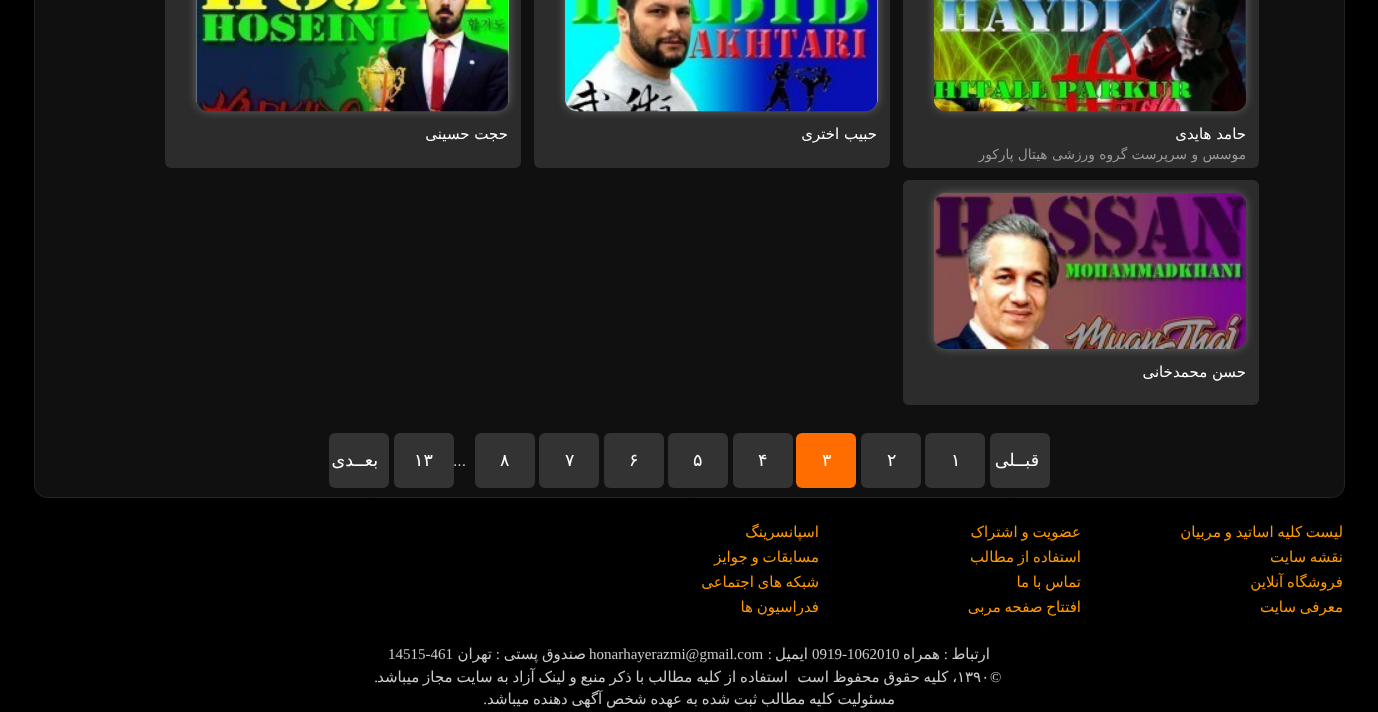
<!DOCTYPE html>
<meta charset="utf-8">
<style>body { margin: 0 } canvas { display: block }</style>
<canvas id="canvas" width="1378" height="712"></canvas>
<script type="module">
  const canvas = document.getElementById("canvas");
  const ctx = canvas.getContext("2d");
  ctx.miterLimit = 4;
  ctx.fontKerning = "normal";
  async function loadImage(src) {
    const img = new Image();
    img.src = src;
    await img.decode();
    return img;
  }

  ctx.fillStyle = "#000000";
  ctx.fillRect(0, 0, 1378, 712);
  ctx.fillStyle = "#101010";
  ctx.beginPath();
  ctx.roundRect(34.5, -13.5, 1310, 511, 12.5);
  ctx.fill();
  ctx.strokeStyle = "#242424";
  ctx.stroke();
  ctx.fillStyle = "#2c2c2c";
  ctx.beginPath();
  ctx.roundRect(903, -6, 356, 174, 6);
  ctx.fill();
  ctx.fillStyle = "#666666";
  ctx.filter = "blur(5px)";
  ctx.beginPath();
  ctx.roundRect(934, -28, 312, 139, 13);
  ctx.fill();
  ctx.filter = "none";
  ctx.drawImage(await loadImage("img1.png"), 933, 0, 314, 112);
  ctx.direction = "rtl";
  ctx.font = "15px DejaVu Sans";
  ctx.fillStyle = "#ffffff";
  ctx.fillText("حامد هایدی", 1246, 139);
  ctx.font = "13.75px DejaVu Sans";
  ctx.fillStyle = "#999999";
  ctx.fillText("موسس و سرپرست گروه ورزشی هیتال پارکور", 1246, 159);
  ctx.fillStyle = "#2c2c2c";
  ctx.beginPath();
  ctx.roundRect(534, -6, 356, 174, 6);
  ctx.fill();
  ctx.fillStyle = "#666666";
  ctx.filter = "blur(5px)";
  ctx.beginPath();
  ctx.roundRect(565, -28, 313, 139, 13);
  ctx.fill();
  ctx.filter = "none";
  ctx.fillStyle = "#cccccc";
  ctx.beginPath();
  ctx.roundRect(565, -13, 313, 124, 13);
  ctx.fill();
  ctx.drawImage(await loadImage("img2.png"), 565, 0, 313, 112);
  ctx.font = "15px DejaVu Sans";
  ctx.fillStyle = "#ffffff";
  ctx.fillText("حبیب اختری", 877, 139);
  ctx.fillStyle = "#2c2c2c";
  ctx.beginPath();
  ctx.roundRect(165, -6, 356, 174, 6);
  ctx.fill();
  ctx.fillStyle = "#666666";
  ctx.filter = "blur(5px)";
  ctx.beginPath();
  ctx.roundRect(196, -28, 313, 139, 13);
  ctx.fill();
  ctx.filter = "none";
  ctx.fillStyle = "#cccccc";
  ctx.beginPath();
  ctx.roundRect(196, -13, 313, 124, 13);
  ctx.fill();
  ctx.drawImage(await loadImage("img3.png"), 196, 0, 313, 112);
  ctx.fillStyle = "#ffffff";
  ctx.fillText("حجت حسینی", 508, 139);
  ctx.fillStyle = "#2c2c2c";
  ctx.beginPath();
  ctx.roundRect(903, 180, 356, 225, 6);
  ctx.fill();
  ctx.fillStyle = "#666666";
  ctx.filter = "blur(5px)";
  ctx.beginPath();
  ctx.roundRect(934, 193, 312, 156, 13);
  ctx.fill();
  ctx.filter = "none";
  ctx.drawImage(await loadImage("img4.png"), 933, 192, 314, 157);
  ctx.fillStyle = "#ffffff";
  ctx.fillText("حسن محمدخانی", 1246, 377);
  ctx.fillStyle = "#333333";
  ctx.beginPath();
  ctx.roundRect(990, 433, 60, 55, 6);
  ctx.fill();
  ctx.font = "17.5px DejaVu Sans";
  ctx.fillStyle = "#ffffff";
  ctx.fillText("قبــلی", 1039, 466);
  ctx.fillStyle = "#333333";
  ctx.beginPath();
  ctx.roundRect(925, 433, 60, 55, 6);
  ctx.fill();
  ctx.direction = "ltr";
  ctx.fillStyle = "#ffffff";
  ctx.fillText("۱", 951, 466);
  ctx.fillStyle = "#333333";
  ctx.beginPath();
  ctx.roundRect(861, 433, 60, 55, 6);
  ctx.fill();
  ctx.fillStyle = "#ffffff";
  ctx.fillText("۲", 887, 466);
  ctx.fillStyle = "#ff6c00";
  ctx.beginPath();
  ctx.roundRect(796, 433, 60, 55, 6);
  ctx.fill();
  ctx.fillStyle = "#ffffff";
  ctx.fillText("۳", 822, 466);
  ctx.fillStyle = "#333333";
  ctx.beginPath();
  ctx.roundRect(733, 433, 60, 55, 6);
  ctx.fill();
  ctx.fillStyle = "#ffffff";
  ctx.fillText("۴", 758, 466);
  ctx.fillStyle = "#333333";
  ctx.beginPath();
  ctx.roundRect(668, 433, 60, 55, 6);
  ctx.fill();
  ctx.fillStyle = "#ffffff";
  ctx.fillText("۵", 693, 466);
  ctx.fillStyle = "#333333";
  ctx.beginPath();
  ctx.roundRect(604, 433, 60, 55, 6);
  ctx.fill();
  ctx.fillStyle = "#ffffff";
  ctx.fillText("۶", 629, 466);
  ctx.fillStyle = "#333333";
  ctx.beginPath();
  ctx.roundRect(539, 433, 60, 55, 6);
  ctx.fill();
  ctx.fillStyle = "#ffffff";
  ctx.fillText("۷", 565, 466);
  ctx.fillStyle = "#333333";
  ctx.beginPath();
  ctx.roundRect(475, 433, 60, 55, 6);
  ctx.fill();
  ctx.fillStyle = "#ffffff";
  ctx.fillText("۸", 500, 466);
  ctx.font = "13.75px DejaVu Sans";
  ctx.fillStyle = "#cccccc";
  ctx.fillText("...", 453, 466);
  ctx.fillStyle = "#333333";
  ctx.beginPath();
  ctx.roundRect(394, 433, 60, 55, 6);
  ctx.fill();
  ctx.font = "17.5px DejaVu Sans";
  ctx.fillStyle = "#ffffff";
  ctx.fillText("۱۳", 414, 466);
  ctx.fillStyle = "#333333";
  ctx.beginPath();
  ctx.roundRect(329, 433, 60, 55, 6);
  ctx.fill();
  ctx.direction = "rtl";
  ctx.fillStyle = "#ffffff";
  ctx.fillText("بعــدی", 378, 466);
  ctx.wordSpacing = "-1px";
  ctx.font = "15px DejaVu Sans";
  ctx.fillStyle = "#ff9900";
  ctx.fillText("لیست کلیه اساتید و مربیان", 1343, 537);
  ctx.fillText("عضویت و اشتراک", 1081, 537);
  ctx.wordSpacing = "0px";
  ctx.fillText("اسپانسرینگ", 819, 537);
  ctx.wordSpacing = "-1px";
  ctx.fillText("نقشه سایت", 1343, 562);
  ctx.fillText("استفاده از مطالب", 1081, 562);
  ctx.fillText("مسابقات و جوایز", 819, 562);
  ctx.fillText("فروشگاه آنلاین", 1343, 587);
  ctx.fillText("تماس با ما", 1081, 587);
  ctx.fillText("شبکه های اجتماعی", 819, 587);
  ctx.fillText("معرفی سایت", 1343, 612);
  ctx.fillText("افتتاح صفحه مربی", 1081, 612);
  ctx.fillText("فدراسیون ها", 819, 612);
  ctx.wordSpacing = "0px";
  ctx.fillStyle = "#cccccc";
  ctx.fillText("ارتباط", 990, 659);
  ctx.font = "15px Liberation Serif";
  ctx.fillText(":", 948, 659);
  ctx.font = "15px DejaVu Sans";
  ctx.fillText("همراه", 940, 659);
  ctx.direction = "ltr";
  ctx.font = "15px Liberation Serif";
  ctx.fillText("0919-1062010", 812, 659);
  ctx.direction = "rtl";
  ctx.font = "15px DejaVu Sans";
  ctx.fillText("ایمیل", 808, 659);
  ctx.font = "15px Liberation Serif";
  ctx.fillText(":", 772, 659);
  ctx.direction = "ltr";
  ctx.fillText("honarhayerazmi@gmail.com", 589, 659);
  ctx.wordSpacing = "-1px";
  ctx.direction = "rtl";
  ctx.font = "15px DejaVu Sans";
  ctx.fillText("صندوق پستی", 586, 659);
  ctx.wordSpacing = "0px";
  ctx.font = "15px Liberation Serif";
  ctx.fillText(":", 500, 659);
  ctx.font = "15px DejaVu Sans";
  ctx.fillText("تهران", 492, 659);
  ctx.direction = "ltr";
  ctx.font = "15px Liberation Serif";
  ctx.fillText("14515-461", 388, 659);
  ctx.fillText("©", 990, 682);
  ctx.wordSpacing = "-0.9px";
  ctx.direction = "rtl";
  ctx.font = "15px DejaVu Sans";
  ctx.fillText("، کلیه حقوق محفوظ است", 957, 682);
  ctx.wordSpacing = "0px";
  ctx.direction = "ltr";
  ctx.fillText("١٣٩٠", 957, 682);
  ctx.wordSpacing = "-0.9px";
  ctx.direction = "rtl";
  ctx.fillText("استفاده از کلیه مطالب با ذکر منبع و لینک آزاد به سایت مجاز میباشد", 788, 682);
  ctx.wordSpacing = "0px";
  ctx.font = "15px Liberation Serif";
  ctx.fillText(".", 378, 682);
  ctx.wordSpacing = "-1px";
  ctx.font = "15px DejaVu Sans";
  ctx.fillText("مسئولیت کلیه مطالب ثبت شده به عهده شخص آگهی دهنده میباشد", 895, 704);
  ctx.wordSpacing = "0px";
  ctx.font = "15px Liberation Serif";
  ctx.fillText(".", 487, 704);
</script>
